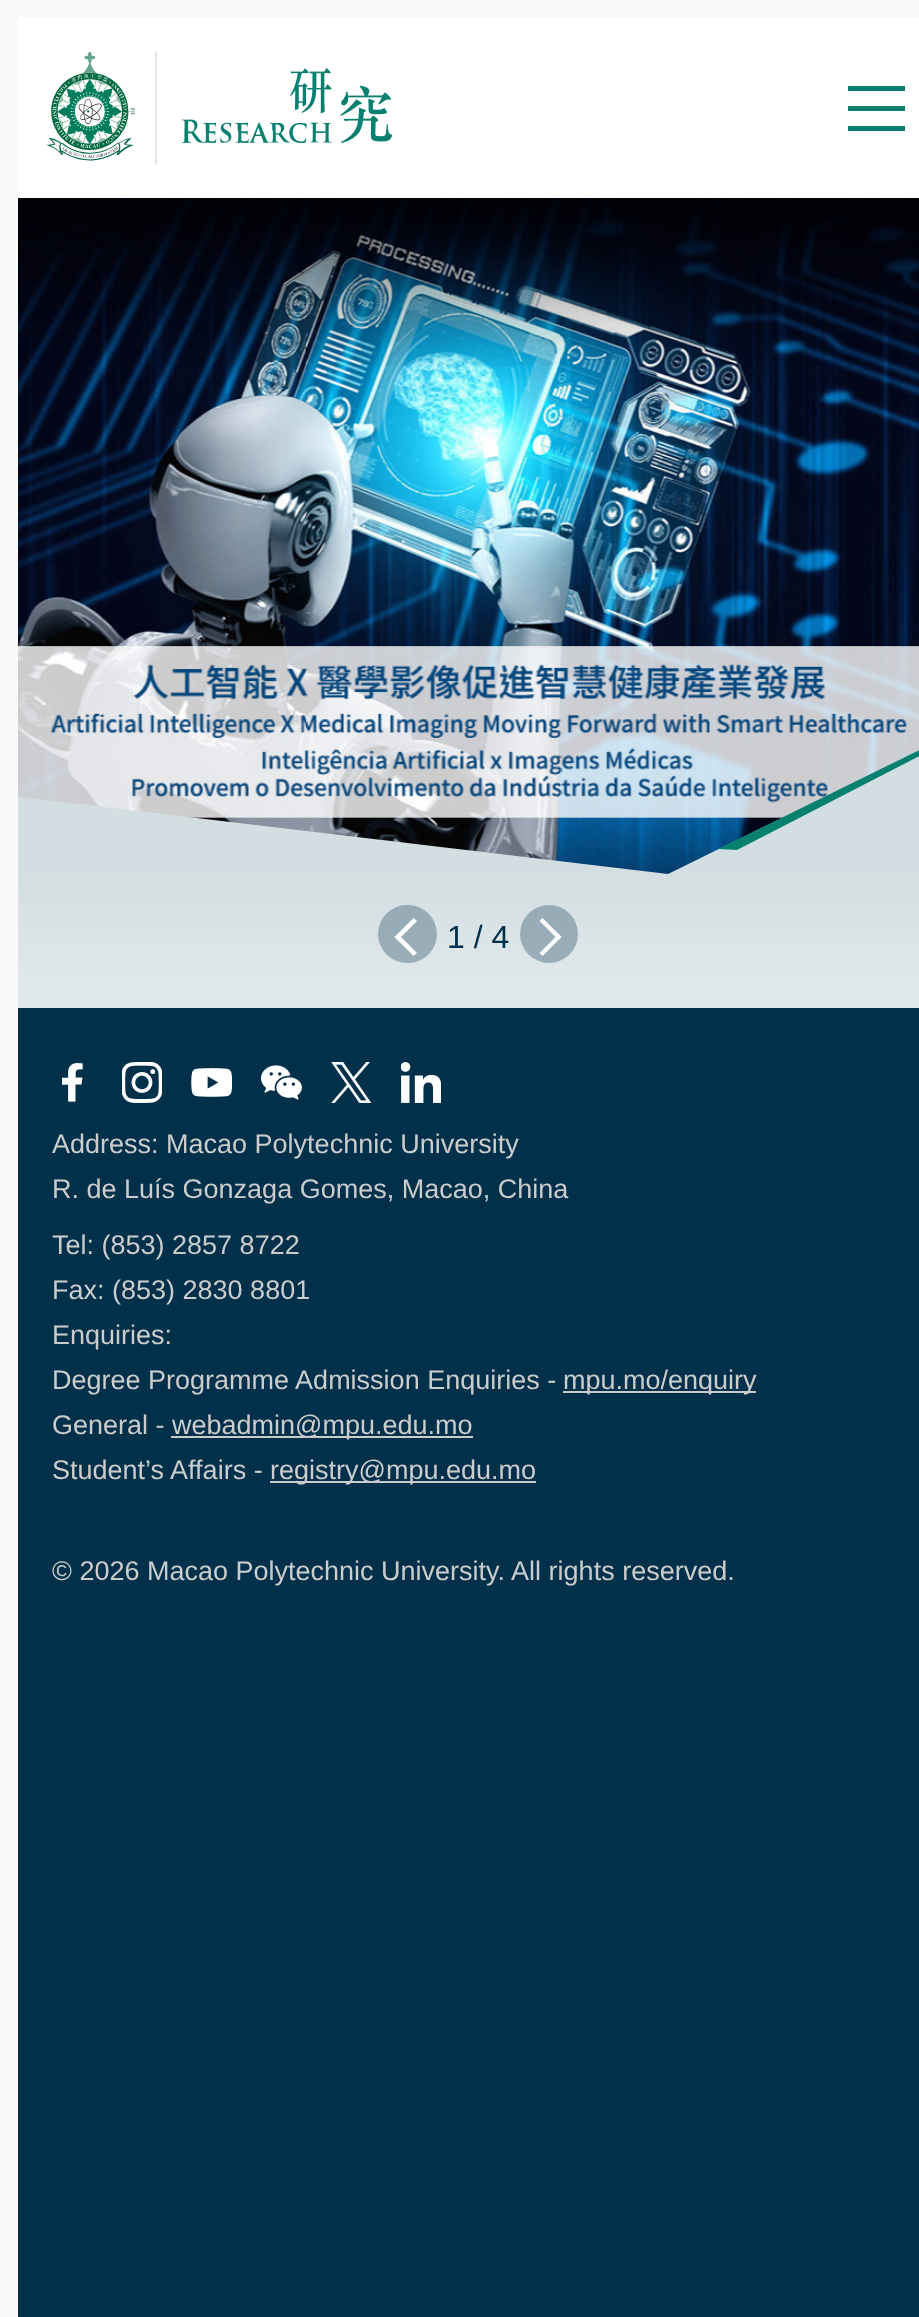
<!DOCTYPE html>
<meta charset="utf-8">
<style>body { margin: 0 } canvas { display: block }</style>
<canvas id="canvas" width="919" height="2317"></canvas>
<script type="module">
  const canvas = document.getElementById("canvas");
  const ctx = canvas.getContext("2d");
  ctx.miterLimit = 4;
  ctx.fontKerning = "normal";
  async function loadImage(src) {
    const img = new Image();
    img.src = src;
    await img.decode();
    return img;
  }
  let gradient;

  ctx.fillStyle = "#fafafa";
  ctx.fillRect(0, 0, 919, 2317);
  ctx.fillStyle = "#01304a";
  ctx.fillRect(18, 1008, 901, 1309);
  ctx.fillStyle = "#ffffff";
  ctx.fillRect(18, 18, 901, 180);
  ctx.drawImage(await loadImage("img1.png"), 46, 52, 89, 109);
  ctx.fillStyle = "#e6e6e6";
  ctx.fillRect(155, 52, 2, 112);
  ctx.drawImage(await loadImage("img2.png"), 181, 68, 212, 76);
  ctx.fillStyle = "#07806f";
  ctx.fillRect(848, 106, 57, 5);
  ctx.fillRect(848, 86, 57, 5);
  ctx.fillRect(848, 126, 57, 5);
  ctx.drawImage(await loadImage("img4.png"), 18, 198, 901, 676);
  ctx.drawImage(await loadImage("img3.png"), 18, 198, 901, 168);
  ctx.save();
  ctx.beginPath();
  ctx.rect(18, 612, 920, 396);
  ctx.clip();
  gradient = ctx.createLinearGradient(479, 1268, 479, 612);
  gradient.addColorStop(0.08, "#f8fafb");
  gradient.addColorStop(0.61, "#d3dee2");
  ctx.fillStyle = gradient;
  ctx.beginPath();
  ctx.moveTo(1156, 634);
  ctx.lineTo(668, 874);
  ctx.lineTo(11, 796);
  ctx.lineTo(-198, 612);
  ctx.lineTo(-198, 1268);
  ctx.lineTo(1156, 1268);
  ctx.closePath();
  ctx.fill();
  ctx.restore();
  ctx.fillStyle = "#078070";
  ctx.beginPath();
  ctx.moveTo(737, 850);
  ctx.lineTo(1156, 634);
  ctx.lineTo(718, 849);
  ctx.closePath();
  ctx.fill();
  ctx.fillStyle = "rgba(1, 48, 74, 0.3)";
  ctx.beginPath();
  ctx.roundRect(378, 905, 59, 58, 29);
  ctx.fill();
  ctx.fillStyle = "#ffffff";
  ctx.beginPath();
  ctx.moveTo(394.5, 937);
  ctx.lineTo(413.5, 918);
  ctx.lineTo(417, 921);
  ctx.lineTo(398, 940);
  ctx.closePath();
  ctx.fill();
  ctx.beginPath();
  ctx.moveTo(394.5, 937);
  ctx.lineTo(398, 934);
  ctx.lineTo(417, 953);
  ctx.lineTo(413.5, 956);
  ctx.closePath();
  ctx.fill();
  ctx.font = "32px Liberation Sans";
  ctx.fillStyle = "#01304a";
  ctx.fillText("1 / 4", 447, 948);
  ctx.fillStyle = "rgba(1, 48, 74, 0.3)";
  ctx.beginPath();
  ctx.arc(549, 934, 29, 0, Math.PI * 2);
  ctx.fill();
  ctx.fillStyle = "#ffffff";
  ctx.beginPath();
  ctx.moveTo(561.5, 937);
  ctx.lineTo(542.5, 956);
  ctx.lineTo(539.5, 953);
  ctx.lineTo(558.5, 934);
  ctx.closePath();
  ctx.fill();
  ctx.beginPath();
  ctx.moveTo(561.5, 937);
  ctx.lineTo(558.5, 940);
  ctx.lineTo(539.5, 921);
  ctx.lineTo(542.5, 918);
  ctx.closePath();
  ctx.fill();
  ctx.drawImage(await loadImage("img5.png"), 62, 1063, 21, 39);
  ctx.drawImage(await loadImage("img6.png"), 122, 1062, 40, 41);
  ctx.drawImage(await loadImage("img7.png"), 191, 1068, 41, 29);
  ctx.drawImage(await loadImage("img8.png"), 261, 1065, 41, 35);
  ctx.drawImage(await loadImage("img9.png"), 331, 1062, 40, 41);
  ctx.drawImage(await loadImage("img10.png"), 401, 1062, 40, 41);
  ctx.font = "27px Liberation Sans";
  ctx.fillStyle = "#cccccc";
  ctx.fillText("Address: Macao Polytechnic University", 52, 1153);
  ctx.fillText("R. de Luís Gonzaga Gomes, Macao, China", 52, 1198);
  ctx.fillText("Tel: (853) 2857 8722", 52, 1254);
  ctx.fillText("Fax: (853) 2830 8801", 52, 1299);
  ctx.fillText("Enquiries:", 52, 1344);
  ctx.fillText("Degree Programme Admission Enquiries -", 52, 1389);
  ctx.fillRect(563, 1391, 193, 2);
  ctx.fillText("mpu.mo/enquiry", 563, 1389);
  ctx.fillText("General -", 52, 1434);
  ctx.fillRect(171, 1436, 302, 2);
  ctx.fillText("webadmin@mpu.edu.mo", 172, 1434);
  ctx.fillText("Student’s Affairs -", 52, 1479);
  ctx.fillRect(270, 1481, 266, 2);
  ctx.fillText("registry@mpu.edu.mo", 270, 1479);
  ctx.fillText("© 2026 Macao Polytechnic University. All rights reserved.", 52, 1580);
</script>
